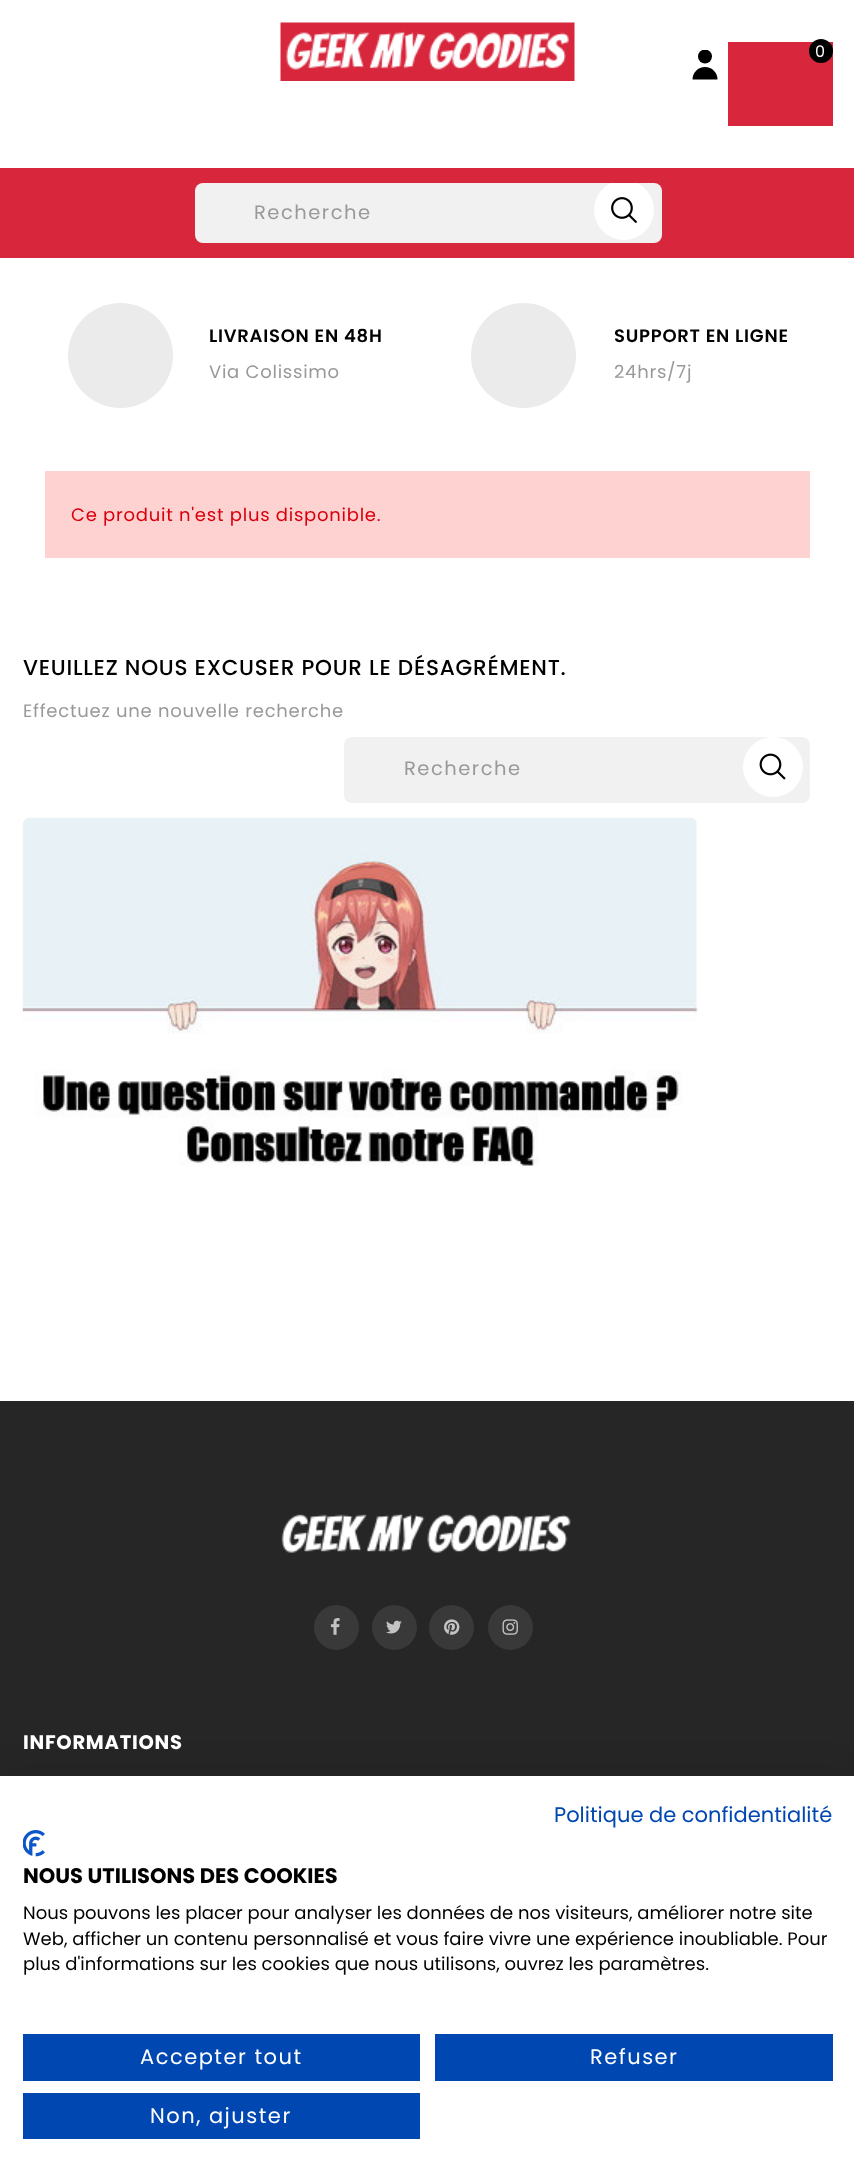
<!DOCTYPE html>
<meta charset="utf-8">
<style>body { margin: 0 } canvas { display: block }</style>
<canvas id="canvas" width="854" height="2179"></canvas>
<script type="module">
  const canvas = document.getElementById("canvas");
  const ctx = canvas.getContext("2d");
  ctx.miterLimit = 4;
  ctx.fontKerning = "normal";
  async function loadImage(src) {
    const img = new Image();
    img.src = src;
    await img.decode();
    return img;
  }

  ctx.fillStyle = "#ffffff";
  ctx.fillRect(0, 0, 854, 2179);
  ctx.drawImage(await loadImage("img1.png"), 280, 22, 295, 59);
  ctx.save();
  ctx.beginPath();
  ctx.rect(690, 50, 30, 30);
  ctx.clip();
  ctx.fillStyle = "#000000";
  ctx.beginPath();
  ctx.arc(705, 56.5, 7, 0, Math.PI * 2);
  ctx.fill();
  ctx.restore();
  ctx.fillStyle = "#000000";
  ctx.beginPath();
  ctx.moveTo(705, 67);
  ctx.bezierCurveTo(698, 67, 692.5, 72.5, 692.5, 79.5);
  ctx.lineTo(717.5, 79.5);
  ctx.bezierCurveTo(717.5, 72.5, 712, 67, 705, 67);
  ctx.closePath();
  ctx.fill();
  ctx.fillStyle = "#d8263c";
  ctx.fillRect(728, 42, 105, 84);
  ctx.fillStyle = "#000000";
  ctx.beginPath();
  ctx.arc(821, 51, 12, 0, Math.PI * 2);
  ctx.fill();
  ctx.letterSpacing = "0.75px";
  ctx.font = "16px Poppins";
  ctx.fillStyle = "#ffffff";
  ctx.fillText("0", 815, 57);
  ctx.fillStyle = "#d8263c";
  ctx.fillRect(0, 168, 854, 90);
  ctx.fillStyle = "#f1f1f1";
  ctx.beginPath();
  ctx.roundRect(195, 183, 467, 60, 8);
  ctx.fill();
  ctx.letterSpacing = "1.5px";
  ctx.font = "19.5px Poppins";
  ctx.fillStyle = "#999999";
  ctx.fillText("Recherche", 254, 219);
  ctx.save();
  ctx.beginPath();
  ctx.rect(195, 183, 467, 60);
  ctx.clip();
  ctx.fillStyle = "#ffffff";
  ctx.beginPath();
  ctx.arc(624, 210, 30, 0, Math.PI * 2);
  ctx.fill();
  ctx.restore();
  ctx.drawImage(await loadImage("img2.png"), 611, 197, 26, 26);
  ctx.fillStyle = "#ebebeb";
  ctx.beginPath();
  ctx.arc(120.5, 355.5, 52.5, 0, Math.PI * 2);
  ctx.fill();
  ctx.letterSpacing = "0.75px";
  ctx.font = "600 18px Poppins";
  ctx.fillStyle = "#000000";
  ctx.fillText("LIVRAISON EN 48H", 209, 342);
  ctx.font = "18px Poppins";
  ctx.fillStyle = "#999999";
  ctx.fillText("Via Colissimo", 209, 378);
  ctx.fillStyle = "#ebebeb";
  ctx.beginPath();
  ctx.arc(523.5, 355.5, 52.5, 0, Math.PI * 2);
  ctx.fill();
  ctx.font = "600 18px Poppins";
  ctx.fillStyle = "#000000";
  ctx.fillText("SUPPORT EN LIGNE", 614, 342);
  ctx.font = "18px Poppins";
  ctx.fillStyle = "#999999";
  ctx.fillText("24hrs/7j", 614, 378);
  ctx.fillStyle = "#ffd2d2";
  ctx.fillRect(45, 471, 765, 87);
  ctx.fillStyle = "#d8000c";
  ctx.fillText("Ce produit n'est plus disponible.", 71, 521);
  ctx.font = "500 21.6px Poppins";
  ctx.fillStyle = "#000000";
  ctx.fillText("VEUILLEZ NOUS EXCUSER POUR LE DÉSAGRÉMENT.", 23, 675);
  ctx.font = "18px Poppins";
  ctx.fillStyle = "#999999";
  ctx.fillText("Effectuez une nouvelle recherche", 23, 717);
  ctx.fillStyle = "#f1f1f1";
  ctx.beginPath();
  ctx.roundRect(344, 737, 466, 66, 8);
  ctx.fill();
  ctx.letterSpacing = "1.5px";
  ctx.font = "19.5px Poppins";
  ctx.fillStyle = "#999999";
  ctx.fillText("Recherche", 404, 775);
  ctx.fillStyle = "#ffffff";
  ctx.beginPath();
  ctx.arc(773, 767, 30, 0, Math.PI * 2);
  ctx.fill();
  ctx.drawImage(await loadImage("img3.png"), 759, 753, 27, 27);
  ctx.drawImage(await loadImage("img4.png"), 22, 817, 676, 349);
  ctx.fillStyle = "#262626";
  ctx.fillRect(0, 1401, 854, 375);
  ctx.drawImage(await loadImage("img5.png"), 281, 1513, 290, 40);
  ctx.fillStyle = "#393939";
  ctx.beginPath();
  ctx.arc(336.5, 1627.5, 22.5, 0, Math.PI * 2);
  ctx.fill();
  ctx.drawImage(await loadImage("img6.png"), 330, 1618, 10, 17);
  ctx.beginPath();
  ctx.arc(394.5, 1627.5, 22.5, 0, Math.PI * 2);
  ctx.fill();
  ctx.drawImage(await loadImage("img7.png"), 386, 1620, 16, 14);
  ctx.beginPath();
  ctx.arc(451.5, 1627.5, 22.5, 0, Math.PI * 2);
  ctx.fill();
  ctx.drawImage(await loadImage("img8.png"), 444, 1619, 16, 16);
  ctx.beginPath();
  ctx.arc(510.5, 1627.5, 22.5, 0, Math.PI * 2);
  ctx.fill();
  ctx.drawImage(await loadImage("img9.png"), 502, 1619, 16, 16);
  ctx.letterSpacing = "0.75px";
  ctx.font = "bold 19.5px Poppins";
  ctx.fillStyle = "#ffffff";
  ctx.fillText("INFORMATIONS", 23, 1749);
  ctx.fillStyle = "rgba(0, 0, 0, 0.1)";
  ctx.filter = "blur(18px)";
  ctx.beginPath();
  ctx.rect(0, 1776, 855, 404);
  ctx.fill();
  ctx.filter = "none";
  ctx.fillStyle = "#ffffff";
  ctx.fillRect(0, 1776, 854, 403);
  ctx.letterSpacing = "0px";
  ctx.font = "21px Poppins";
  ctx.fillStyle = "#0047b2";
  ctx.fillText("Politique de confidentialité", 554, 1822);
  ctx.drawImage(await loadImage("img10.png"), 23, 1830, 22, 27);
  ctx.font = "bold 21px Poppins";
  ctx.fillStyle = "#000000";
  ctx.fillText("NOUS UTILISONS DES COOKIES", 23, 1883);
  ctx.font = "18px Poppins";
  ctx.fillText("Nous pouvons les placer pour analyser les données de nos visiteurs, améliorer notre site", 23, 1919);
  ctx.fillText("Web, afficher un contenu personnalisé et vous faire vivre une expérience inoubliable. Pour", 23, 1945);
  ctx.fillText("plus d'informations sur les cookies que nous utilisons, ouvrez les paramètres.", 23, 1970);
  ctx.fillStyle = "#0047b2";
  ctx.fillRect(23, 2034, 397, 47);
  ctx.letterSpacing = "1.5px";
  ctx.font = "21px Poppins";
  ctx.fillStyle = "#ffffff";
  ctx.fillText("Accepter tout", 140, 2064);
  ctx.fillStyle = "#0047b2";
  ctx.fillRect(435, 2034, 398, 47);
  ctx.fillStyle = "#ffffff";
  ctx.fillText("Refuser", 590, 2064);
  ctx.fillStyle = "#0047b2";
  ctx.fillRect(23, 2093, 397, 46);
  ctx.fillStyle = "#ffffff";
  ctx.fillText("Non, ajuster", 150, 2123);
</script>
